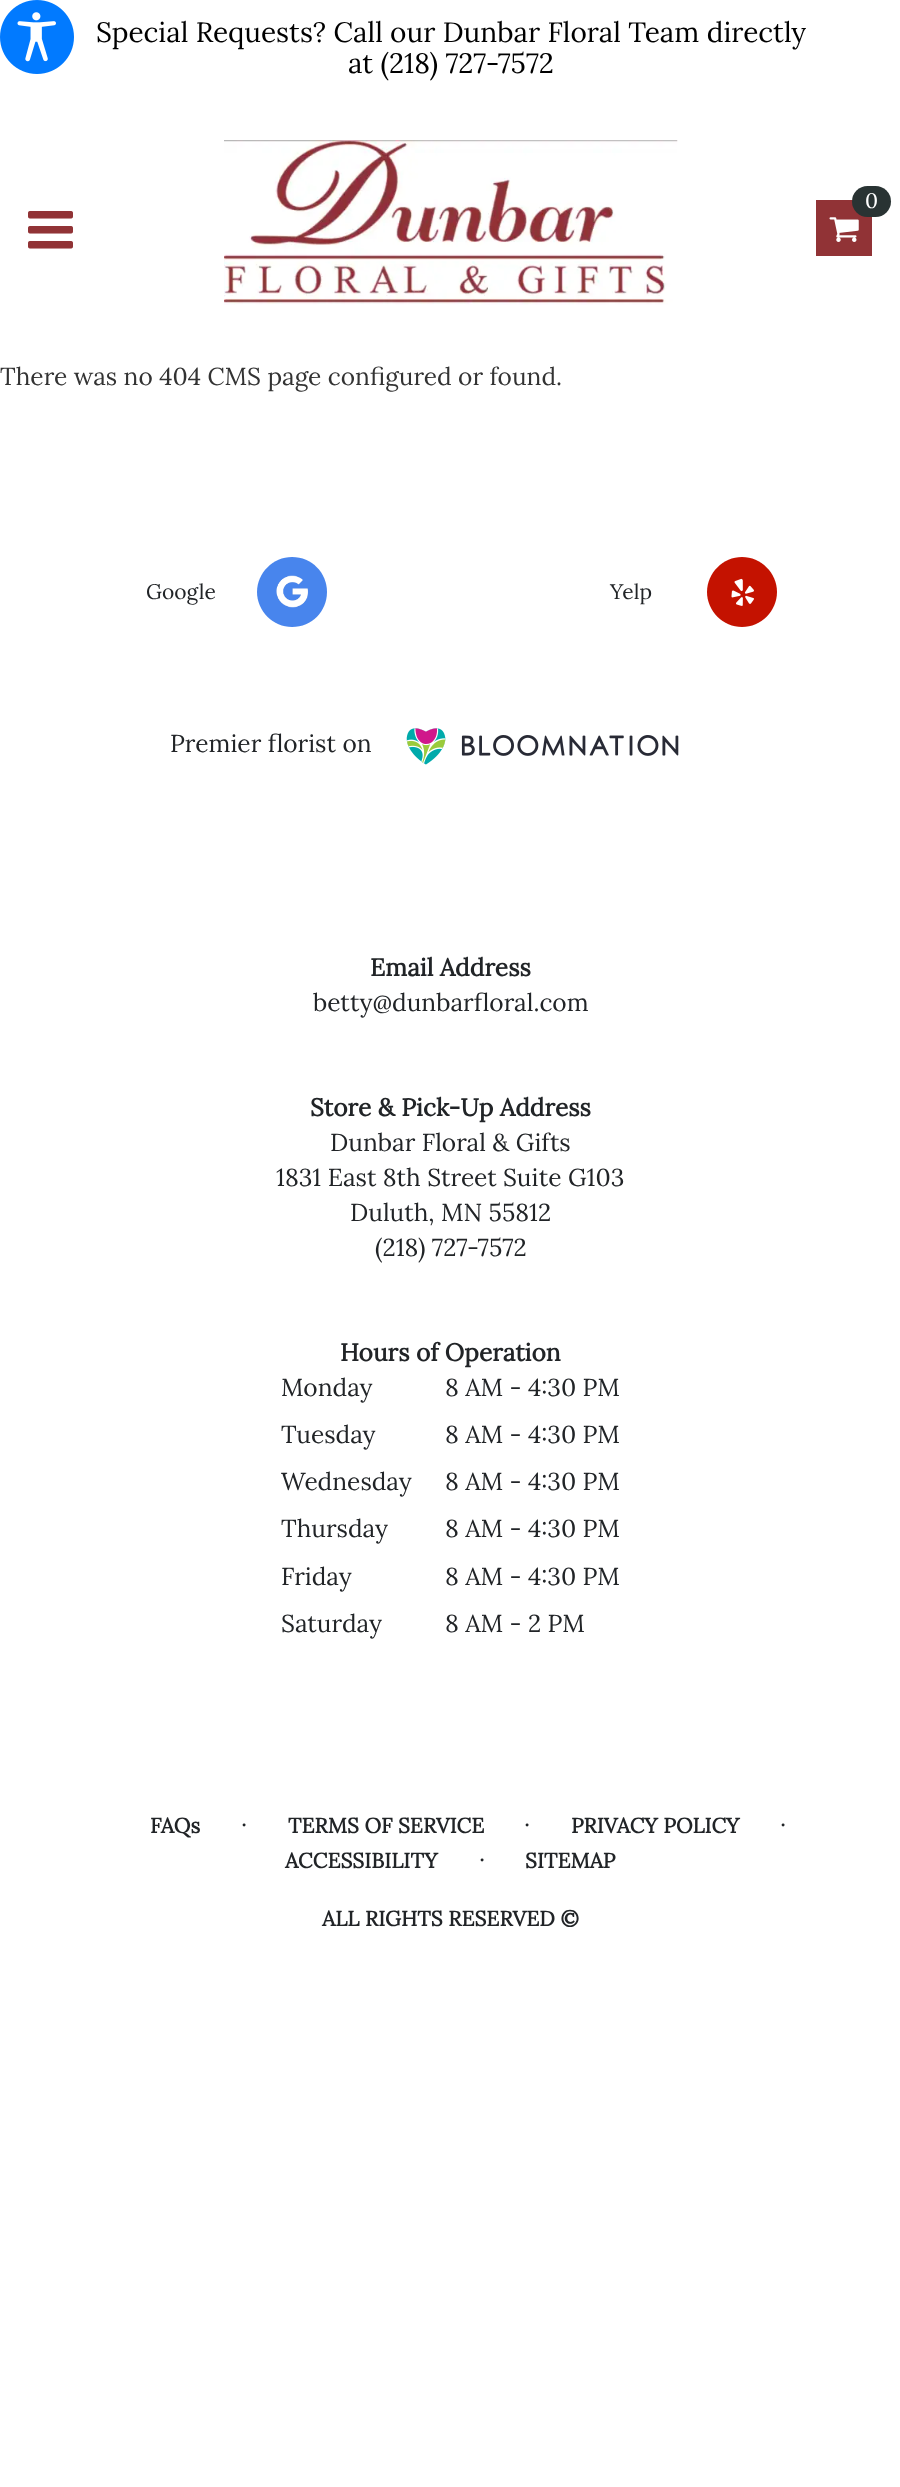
<!DOCTYPE html>
<meta charset="utf-8">
<style>body { margin: 0 } canvas { display: block }</style>
<canvas id="canvas" width="900" height="2487"></canvas>
<script type="module">
  const canvas = document.getElementById("canvas");
  const ctx = canvas.getContext("2d");
  ctx.miterLimit = 4;
  ctx.fontKerning = "normal";
  async function loadImage(src) {
    const img = new Image();
    img.src = src;
    await img.decode();
    return img;
  }

  ctx.fillStyle = "#ffffff";
  ctx.fillRect(0, 0, 900, 2487);
  ctx.drawImage(await loadImage("img1.png"), 0, 0, 74, 74);
  ctx.font = "28px Lora";
  ctx.fillStyle = "#000000";
  ctx.fillText("Special Requests? Call our Dunbar Floral Team directly", 96, 42);
  ctx.fillText("at (218) 727-7572", 348, 73);
  ctx.drawImage(await loadImage("img2.png"), 224, 140, 454, 165);
  ctx.fillStyle = "#913336";
  ctx.fillRect(816, 200, 56, 56);
  ctx.fillStyle = "#293333";
  ctx.beginPath();
  ctx.roundRect(852, 186, 39, 31, 15.5);
  ctx.fill();
  ctx.font = "21px Lora";
  ctx.fillStyle = "#ffffff";
  ctx.fillText("0", 865, 208);
  ctx.drawImage(await loadImage("img3.png"), 829, 217, 30, 25);
  ctx.drawImage(await loadImage("img4.png"), 28, 211, 45, 38);
  ctx.font = "24.5px Lora";
  ctx.fillStyle = "#333333";
  ctx.fillText("There was no 404 CMS page configured or found.", 0, 385);
  ctx.font = "21px Lora";
  ctx.fillStyle = "#212427";
  ctx.fillText("Google", 146, 599);
  ctx.fillStyle = "#4885ed";
  ctx.beginPath();
  ctx.moveTo(327, 592);
  ctx.bezierCurveTo(327, 573, 312, 557, 292, 557);
  ctx.bezierCurveTo(273, 557, 257, 573, 257, 592);
  ctx.bezierCurveTo(257, 611, 273, 627, 292, 627);
  ctx.bezierCurveTo(312, 627, 327, 611, 327, 592);
  ctx.closePath();
  ctx.fill();
  ctx.drawImage(await loadImage("img5.png"), 276, 575, 32, 33);
  ctx.fillStyle = "#212427";
  ctx.fillText("Yelp", 610, 599);
  ctx.fillStyle = "#c41200";
  ctx.beginPath();
  ctx.moveTo(777, 592);
  ctx.bezierCurveTo(777, 573, 761, 557, 742, 557);
  ctx.bezierCurveTo(723, 557, 707, 573, 707, 592);
  ctx.bezierCurveTo(707, 611, 723, 627, 742, 627);
  ctx.bezierCurveTo(761, 627, 777, 611, 777, 592);
  ctx.closePath();
  ctx.fill();
  ctx.drawImage(await loadImage("img6.png"), 731, 578, 23, 28);
  ctx.font = "24.5px Lora";
  ctx.fillStyle = "#212427";
  ctx.fillText("Premier florist on", 170, 752);
  ctx.drawImage(await loadImage("img7.png"), 406, 728, 273, 37);
  ctx.font = "bold 24.5px Lora";
  ctx.fillText("Email Address", 370, 976);
  ctx.font = "24.5px Lora";
  ctx.fillText("betty@dunbarfloral.com", 313, 1011);
  ctx.font = "bold 24.5px Lora";
  ctx.fillText("Store & Pick-Up Address", 310, 1116);
  ctx.font = "24.5px Lora";
  ctx.fillText("Dunbar Floral & Gifts", 330, 1151);
  ctx.fillText("1831 East 8th Street Suite G103", 276, 1186);
  ctx.fillText("Duluth, MN 55812", 350, 1221);
  ctx.fillText("(218) 727-7572", 375, 1256);
  ctx.font = "bold 24.5px Lora";
  ctx.fillText("Hours of Operation", 340, 1361);
  ctx.font = "24.5px Lora";
  ctx.fillText("Monday", 281, 1396);
  ctx.fillText("8 AM - 4:30 PM", 445, 1396);
  ctx.fillText("Tuesday", 281, 1443);
  ctx.fillText("8 AM - 4:30 PM", 445, 1443);
  ctx.fillText("Wednesday", 281, 1490);
  ctx.fillText("8 AM - 4:30 PM", 445, 1490);
  ctx.fillText("Thursday", 281, 1537);
  ctx.fillText("8 AM - 4:30 PM", 445, 1537);
  ctx.fillText("Friday", 281, 1585);
  ctx.fillText("8 AM - 4:30 PM", 445, 1585);
  ctx.fillText("Saturday", 281, 1632);
  ctx.fillText("8 AM - 2 PM", 445, 1632);
  ctx.font = "bold 21px Lora";
  ctx.fillText("FAQs", 150, 1833);
  ctx.font = "24.5px Lora";
  ctx.fillText("·", 241, 1833);
  ctx.font = "bold 21px Lora";
  ctx.fillText("TERMS OF SERVICE", 288, 1833);
  ctx.font = "24.5px Lora";
  ctx.fillText("·", 524, 1833);
  ctx.font = "bold 21px Lora";
  ctx.fillText("PRIVACY POLICY", 571, 1833);
  ctx.font = "24.5px Lora";
  ctx.fillText("·", 780, 1833);
  ctx.font = "bold 21px Lora";
  ctx.fillText("ACCESSIBILITY", 285, 1868);
  ctx.font = "24.5px Lora";
  ctx.fillText("·", 479, 1868);
  ctx.font = "bold 21px Lora";
  ctx.fillText("SITEMAP", 525, 1868);
  ctx.fillText("ALL RIGHTS RESERVED ©", 322, 1926);
</script>
